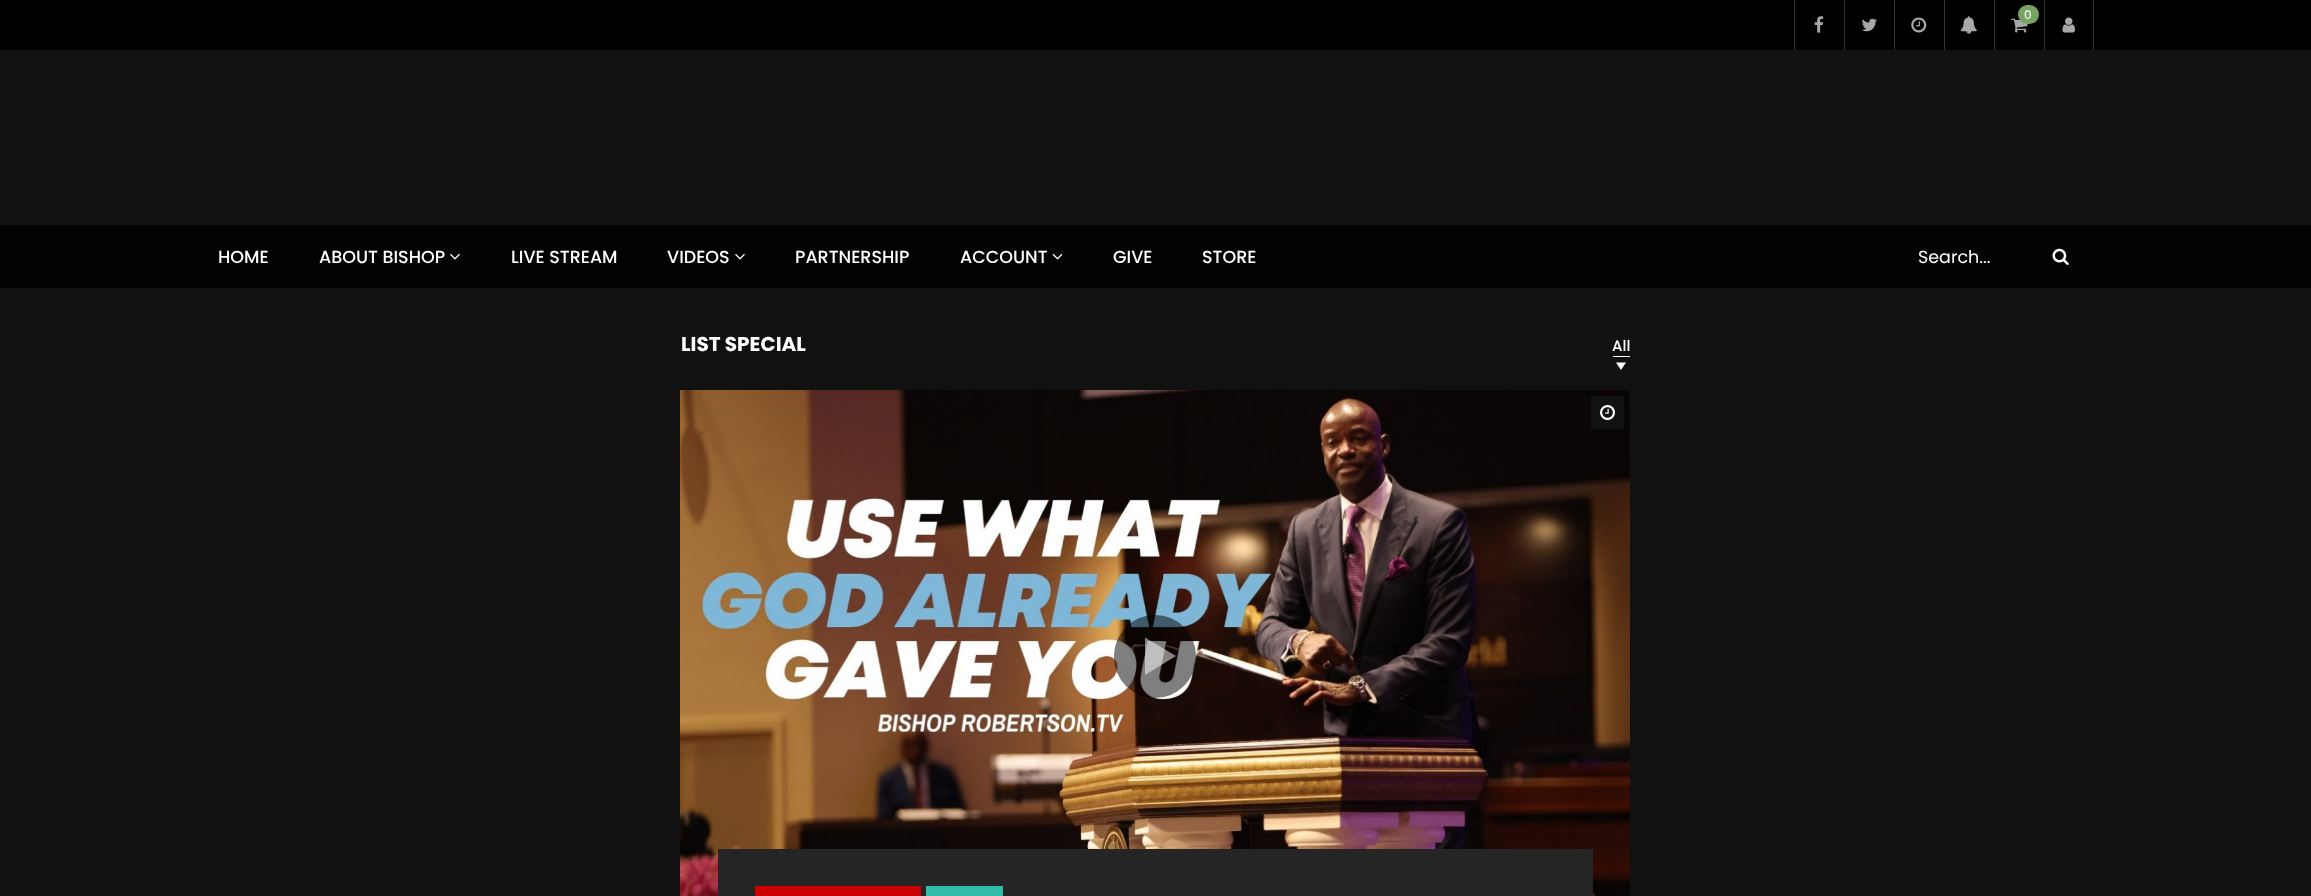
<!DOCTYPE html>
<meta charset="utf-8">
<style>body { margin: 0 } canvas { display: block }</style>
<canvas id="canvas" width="2311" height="896"></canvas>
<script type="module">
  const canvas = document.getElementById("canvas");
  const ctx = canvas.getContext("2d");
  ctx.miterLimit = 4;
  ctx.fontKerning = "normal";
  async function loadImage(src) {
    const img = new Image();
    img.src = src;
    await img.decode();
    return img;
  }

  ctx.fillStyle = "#111111";
  ctx.fillRect(0, 0, 2311, 896);
  ctx.fillStyle = "#000000";
  ctx.fillRect(0, 0, 2311, 50);
  ctx.fillStyle = "#333333";
  ctx.fillRect(1794, 0, 1, 50);
  ctx.drawImage(await loadImage("img1.png"), 1814, 16, 10, 17);
  ctx.fillRect(1844, 0, 1, 50);
  ctx.drawImage(await loadImage("img2.png"), 1862, 18, 15, 14);
  ctx.fillRect(1894, 0, 1, 50);
  ctx.drawImage(await loadImage("img3.png"), 1911, 17, 16, 16);
  ctx.fillRect(1944, 0, 1, 50);
  ctx.drawImage(await loadImage("img4.png"), 1960, 16, 17, 18);
  ctx.fillRect(1994, 0, 1, 50);
  ctx.drawImage(await loadImage("img5.png"), 2011, 18, 17, 15);
  ctx.fillStyle = "#77a464";
  ctx.beginPath();
  ctx.roundRect(2018, 5, 21, 19, 9.5);
  ctx.fill();
  ctx.font = "12px Poppins";
  ctx.fillStyle = "#ffffff";
  ctx.fillText("0", 2024, 19);
  ctx.fillStyle = "#333333";
  ctx.fillRect(2093, 0, 1, 50);
  ctx.fillRect(2044, 0, 1, 50);
  ctx.drawImage(await loadImage("img6.png"), 2062, 17, 13, 16);
  ctx.fillStyle = "#020202";
  ctx.fillRect(0, 225, 2311, 63);
  ctx.font = "500 17.5px Poppins";
  ctx.fillStyle = "#ffffff";
  ctx.fillText("HOME", 218, 263);
  ctx.fillText("ABOUT BISHOP", 319, 263);
  ctx.drawImage(await loadImage("img7.png"), 450, 253, 10, 7);
  ctx.fillText("LIVE STREAM", 511, 263);
  ctx.fillText("VIDEOS", 667, 263);
  ctx.drawImage(await loadImage("img7.png"), 735, 253, 10, 7);
  ctx.fillText("PARTNERSHIP", 795, 263);
  ctx.fillText("ACCOUNT", 960, 263);
  ctx.drawImage(await loadImage("img8.png"), 1052, 253, 11, 7);
  ctx.fillText("GIVE", 1113, 263);
  ctx.fillText("STORE", 1202, 263);
  ctx.font = "17.5px Poppins";
  ctx.fillText("Search...", 1918, 263);
  ctx.drawImage(await loadImage("img9.png"), 2052, 248, 17, 17);
  ctx.font = "bold 20px Poppins";
  ctx.fillText("LIST SPECIAL", 681, 351);
  ctx.fillRect(1613, 356, 17, 1);
  ctx.font = "500 15px Poppins";
  ctx.fillText("All", 1612, 351);
  ctx.beginPath();
  ctx.moveTo(1616, 362.5);
  ctx.lineTo(1626, 362.5);
  ctx.lineTo(1621, 370);
  ctx.closePath();
  ctx.fill();
  ctx.drawImage(await loadImage("img10.png"), 680, 390, 950, 506);
  ctx.fillStyle = "#111111";
  ctx.fillRect(1591, 396, 33, 33);
  ctx.drawImage(await loadImage("img11.png"), 1600, 405, 15, 15);
  ctx.fillStyle = "rgba(0, 0, 0, 0.5)";
  ctx.beginPath();
  ctx.roundRect(1114, 615, 82, 83, 41);
  ctx.fill();
  ctx.fillStyle = "rgba(255, 255, 255, 0.5)";
  ctx.beginPath();
  ctx.moveTo(1145, 675);
  ctx.lineTo(1145, 637.5);
  ctx.lineTo(1176, 656);
  ctx.closePath();
  ctx.fill();
  ctx.fillStyle = "#252525";
  ctx.fillRect(718, 849, 875, 47);
  ctx.fillStyle = "#cc0000";
  ctx.fillRect(755, 886, 166, 10);
  ctx.fillStyle = "#32bea6";
  ctx.fillRect(926, 886, 77, 10);
</script>
